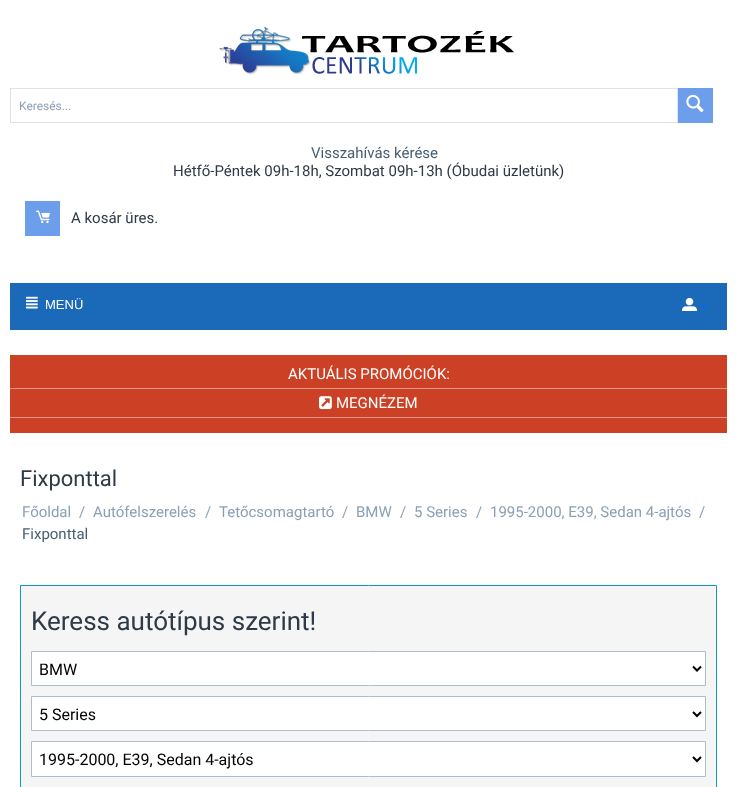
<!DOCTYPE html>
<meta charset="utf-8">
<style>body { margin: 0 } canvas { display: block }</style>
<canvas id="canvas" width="737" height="787"></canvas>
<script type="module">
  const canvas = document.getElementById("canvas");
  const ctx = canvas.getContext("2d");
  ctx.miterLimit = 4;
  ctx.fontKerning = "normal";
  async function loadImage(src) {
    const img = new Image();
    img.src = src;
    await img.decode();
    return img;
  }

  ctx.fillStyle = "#ffffff";
  ctx.fillRect(0, 0, 737, 787);
  ctx.drawImage(await loadImage("img1.png"), 219, 26, 295, 49);
  ctx.strokeStyle = "#dce3ea";
  ctx.strokeRect(10.5, 88.5, 667, 34);
  ctx.font = "12px Roboto";
  ctx.fillStyle = "#8ca0b5";
  ctx.fillText("Keresés...", 19, 110);
  ctx.fillStyle = "#6d9eeb";
  ctx.fillRect(678, 88, 35, 35);
  ctx.drawImage(await loadImage("img2.png"), 686, 94, 18, 18);
  ctx.font = "15px Roboto";
  ctx.fillStyle = "#465f73";
  ctx.fillText("Visszahívás kérése", 311, 158);
  ctx.fillStyle = "#2e3a47";
  ctx.fillText("Hétfő-Péntek 09h-18h, Szombat 09h-13h (Óbudai üzletünk)", 173, 176);
  ctx.fillStyle = "#6d9eeb";
  ctx.fillRect(25, 201, 35, 35);
  ctx.drawImage(await loadImage("img3.png"), 36, 210, 14, 14);
  ctx.fillStyle = "#2e3a47";
  ctx.fillText("A kosár üres.", 71, 223);
  ctx.fillStyle = "#1b6ab9";
  ctx.fillRect(10, 283, 717, 47);
  ctx.drawImage(await loadImage("img4.png"), 26, 296, 12, 13);
  ctx.font = "13px Liberation Sans";
  ctx.fillStyle = "#ffffff";
  ctx.fillText("MENÜ", 45, 309);
  ctx.drawImage(await loadImage("img5.png"), 682, 297, 15, 14);
  ctx.fillStyle = "#0569f2";
  ctx.beginPath();
  ctx.moveTo(704, 308.5);
  ctx.lineTo(701, 305);
  ctx.lineTo(707.5, 305);
  ctx.closePath();
  ctx.fill();
  ctx.fillStyle = "#cc4125";
  ctx.fillRect(10, 355, 717, 78);
  ctx.fillStyle = "#dd988a";
  ctx.fillRect(10, 388, 717, 1);
  ctx.font = "15px Roboto";
  ctx.fillStyle = "#ffffff";
  ctx.fillText("AKTUÁLIS PROMÓCIÓK:", 288, 379);
  ctx.fillStyle = "#dd988a";
  ctx.fillRect(10, 417, 717, 1);
  ctx.drawImage(await loadImage("img6.png"), 319, 396, 13, 14);
  ctx.fillStyle = "#ffffff";
  ctx.fillText("MEGNÉZEM", 336, 408);
  ctx.font = "22px Roboto";
  ctx.fillStyle = "#2e3a47";
  ctx.fillText("Fixponttal", 20, 486);
  ctx.font = "15px Roboto";
  ctx.fillStyle = "#8ca0b5";
  ctx.fillText("Főoldal", 22, 517);
  ctx.fillText("/", 79, 517);
  ctx.fillText("Autófelszerelés", 93, 517);
  ctx.fillText("/", 205, 517);
  ctx.fillText("Tetőcsomagtartó", 219, 517);
  ctx.fillText("/", 342, 517);
  ctx.fillText("BMW", 356, 517);
  ctx.fillText("/", 400, 517);
  ctx.fillText("5 Series", 414, 517);
  ctx.fillText("/", 476, 517);
  ctx.fillText("1995-2000, E39, Sedan 4-ajtós", 490, 517);
  ctx.fillText("/", 699, 517);
  ctx.fillStyle = "#465f73";
  ctx.fillText("Fixponttal", 22, 539);
  ctx.fillStyle = "#f5f5f5";
  ctx.beginPath();
  ctx.rect(20.5, 585.5, 696, 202);
  ctx.fill();
  ctx.strokeStyle = "#0f9bb0";
  ctx.stroke();
  ctx.font = "26px Roboto";
  ctx.fillStyle = "#2e3a47";
  ctx.fillText("Keress autótípus szerint!", 31, 630);
  ctx.fillStyle = "#ffffff";
  ctx.beginPath();
  ctx.rect(31.5, 651.5, 674, 34);
  ctx.fill();
  ctx.strokeStyle = "#acbdcd";
  ctx.stroke();
  ctx.beginPath();
  ctx.moveTo(693, 666.5);
  ctx.lineTo(697, 670.5);
  ctx.lineTo(701, 666.5);
  ctx.strokeStyle = "#000000";
  ctx.lineWidth = 2;
  ctx.stroke();
  ctx.font = "16px Roboto";
  ctx.fillStyle = "#000000";
  ctx.fillText("BMW", 39, 675);
  ctx.fillStyle = "#ffffff";
  ctx.beginPath();
  ctx.rect(31.5, 696.5, 674, 34);
  ctx.fill();
  ctx.strokeStyle = "#acbdcd";
  ctx.lineWidth = 1;
  ctx.stroke();
  ctx.beginPath();
  ctx.moveTo(693, 712);
  ctx.lineTo(697, 716);
  ctx.lineTo(701, 712);
  ctx.strokeStyle = "#000000";
  ctx.lineWidth = 2;
  ctx.stroke();
  ctx.fillStyle = "#000000";
  ctx.fillText("5 Series", 39, 720);
  ctx.fillStyle = "#ffffff";
  ctx.beginPath();
  ctx.rect(31.5, 741.5, 674, 35);
  ctx.fill();
  ctx.strokeStyle = "#acbdcd";
  ctx.lineWidth = 1;
  ctx.stroke();
  ctx.beginPath();
  ctx.moveTo(693, 757);
  ctx.lineTo(697, 761);
  ctx.lineTo(701, 757);
  ctx.strokeStyle = "#000000";
  ctx.lineWidth = 2;
  ctx.stroke();
  ctx.fillStyle = "#000000";
  ctx.fillText("1995-2000, E39, Sedan 4-ajtós", 39, 765);
</script>
